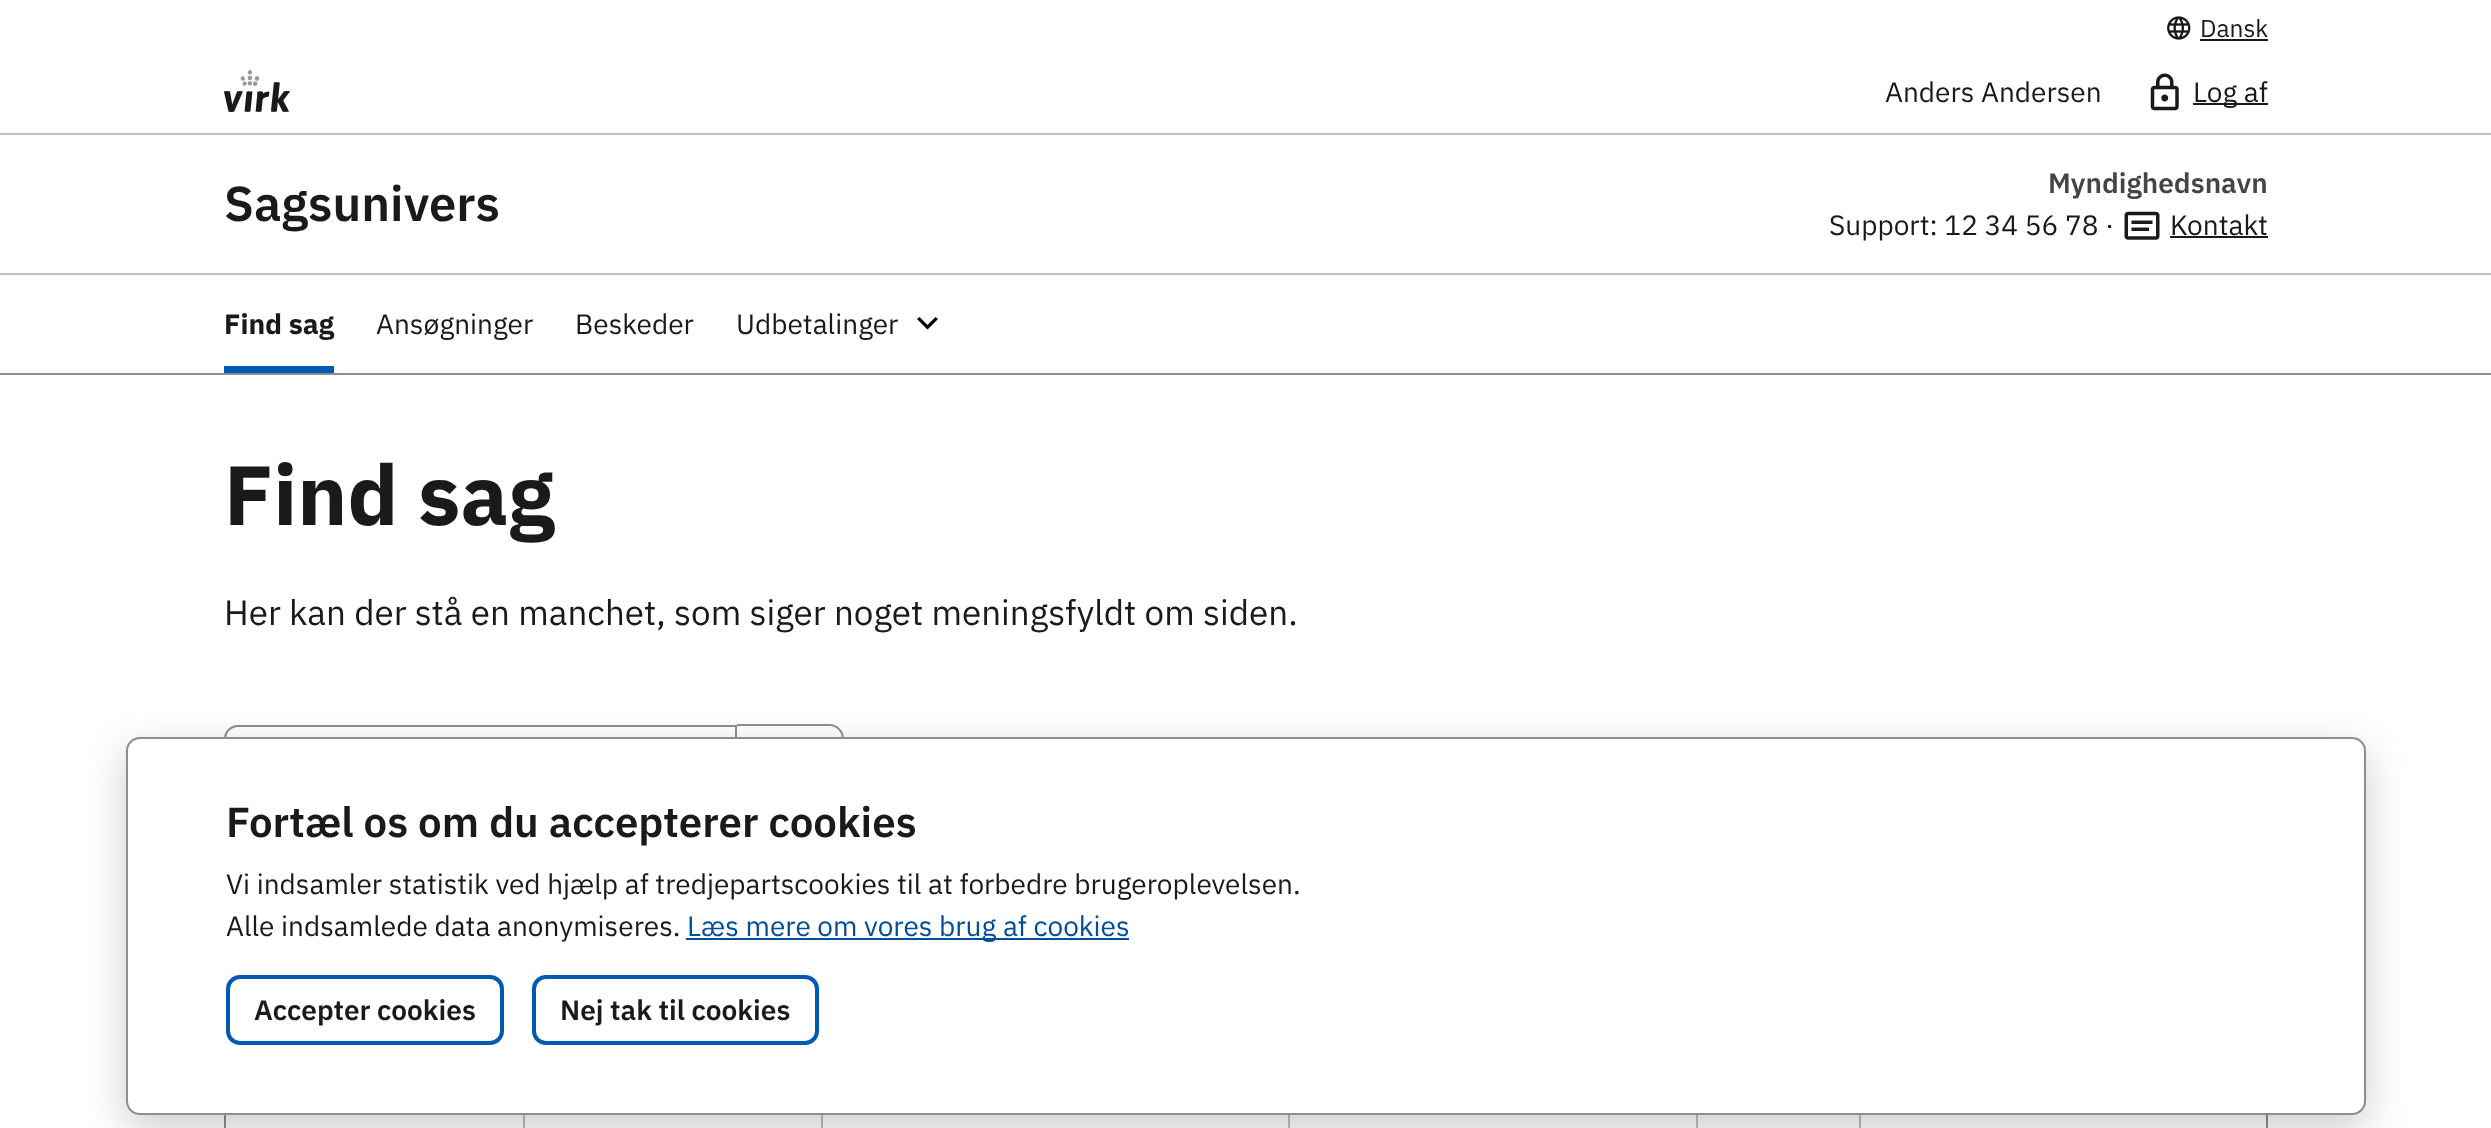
<!DOCTYPE html>
<meta charset="utf-8">
<style>body { margin: 0 } canvas { display: block }</style>
<canvas id="canvas" width="2491" height="1128"></canvas>
<script type="module">
  const canvas = document.getElementById("canvas");
  const ctx = canvas.getContext("2d");
  ctx.miterLimit = 4;
  ctx.fontKerning = "normal";
  async function loadImage(src) {
    const img = new Image();
    img.src = src;
    await img.decode();
    return img;
  }

  ctx.fillStyle = "#ffffff";
  ctx.fillRect(0, 0, 2491, 1128);
  ctx.fillStyle = "#8e8e8e";
  ctx.fillRect(0, 373, 2491, 2);
  ctx.drawImage(await loadImage("img1.png"), 2167, 16, 24, 24);
  ctx.font = "24.5px IBM Plex Sans";
  ctx.fillStyle = "#1a1a1a";
  ctx.fillText("Dansk", 2200, 37);
  ctx.fillRect(2200, 39, 68, 2);
  ctx.drawImage(await loadImage("img2.png"), 224, 70, 66, 42);
  ctx.font = "28px IBM Plex Sans";
  ctx.fillText("Anders Andersen", 1885, 102);
  ctx.drawImage(await loadImage("img3.png"), 2150, 73, 29, 38);
  ctx.fillRect(2193, 103, 75, 2);
  ctx.fillText("Log af", 2193, 102);
  ctx.fillStyle = "#bfbfbf";
  ctx.fillRect(0, 133, 2491, 2);
  ctx.font = "600 49px IBM Plex Sans";
  ctx.fillStyle = "#1a1a1a";
  ctx.fillText("Sagsunivers", 224, 221);
  ctx.font = "600 28px IBM Plex Sans";
  ctx.fillStyle = "#454545";
  ctx.fillText("Myndighedsnavn", 2048, 193);
  ctx.font = "28px IBM Plex Sans";
  ctx.fillStyle = "#1a1a1a";
  ctx.fillText("Support: 12 34 56 78", 1829, 235);
  ctx.fillText("·", 2105, 235);
  ctx.drawImage(await loadImage("img4.png"), 2124, 211, 36, 29);
  ctx.fillText("Kontakt", 2170, 235);
  ctx.fillRect(2170, 236, 98, 2);
  ctx.fillStyle = "#bfbfbf";
  ctx.fillRect(0, 273, 2491, 2);
  ctx.fillStyle = "#0059b3";
  ctx.fillRect(224, 366, 110, 7);
  ctx.font = "bold 28px IBM Plex Sans";
  ctx.fillStyle = "#1a1a1a";
  ctx.fillText("Find sag", 224, 334);
  ctx.font = "28px IBM Plex Sans";
  ctx.fillText("Ansøgninger", 376, 334);
  ctx.fillText("Beskeder", 575, 334);
  ctx.fillStyle = "#000000";
  ctx.beginPath();
  ctx.moveTo(927.5, 329.5);
  ctx.lineTo(917, 319);
  ctx.lineTo(919.5, 317);
  ctx.lineTo(927.5, 325);
  ctx.lineTo(935.5, 317);
  ctx.lineTo(938, 319);
  ctx.closePath();
  ctx.fill();
  ctx.fillStyle = "#1a1a1a";
  ctx.fillText("Udbetalinger", 736, 334);
  ctx.font = "bold 84px IBM Plex Sans";
  ctx.fillText("Find sag", 224, 525);
  ctx.font = "35px IBM Plex Sans";
  ctx.fillText("Her kan der stå en manchet, som siger noget meningsfyldt om siden.", 224, 625);
  ctx.beginPath();
  ctx.roundRect(225, 726, 511, 68, [13, 0, 0, 13]);
  ctx.strokeStyle = "#8e8e8e";
  ctx.lineWidth = 2;
  ctx.stroke();
  ctx.fillStyle = "#8e8e8e";
  ctx.beginPath();
  ctx.moveTo(737, 724);
  ctx.lineTo(830, 724);
  ctx.bezierCurveTo(837, 724, 844, 731, 844, 738);
  ctx.lineTo(844, 780);
  ctx.bezierCurveTo(844, 788, 837, 794, 830, 794);
  ctx.lineTo(737, 794);
  ctx.closePath();
  ctx.moveTo(737, 726);
  ctx.lineTo(830, 726);
  ctx.bezierCurveTo(836, 726, 842, 732, 842, 738);
  ctx.lineTo(842, 780);
  ctx.bezierCurveTo(842, 787, 836, 793, 830, 793);
  ctx.lineTo(737, 793);
  ctx.closePath();
  ctx.fill("evenodd");
  ctx.strokeRect(225, 824, 2042, 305);
  ctx.fillStyle = "#bfbfbf";
  ctx.fillRect(523, 1115, 2, 13);
  ctx.fillRect(821, 1115, 2, 13);
  ctx.fillRect(1288, 1115, 2, 13);
  ctx.fillRect(1696, 1115, 2, 13);
  ctx.fillRect(1859, 1115, 2, 13);
  ctx.fillStyle = "rgba(0, 0, 0, 0.2)";
  ctx.filter = "blur(21px)";
  ctx.beginPath();
  ctx.roundRect(126, 751, 2240, 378, 14);
  ctx.fill();
  ctx.filter = "none";
  ctx.fillStyle = "#ffffff";
  ctx.beginPath();
  ctx.roundRect(127, 738, 2238, 376, 13);
  ctx.fill();
  ctx.stroke();
  ctx.font = "600 42px IBM Plex Sans";
  ctx.fillStyle = "#1a1a1a";
  ctx.fillText("Fortæl os om du accepterer cookies", 226, 837);
  ctx.font = "28px IBM Plex Sans";
  ctx.fillText("Vi indsamler statistik ved hjælp af tredjepartscookies til at forbedre brugeroplevelsen.", 226, 894);
  ctx.fillText("Alle indsamlede data anonymiseres.", 226, 936);
  ctx.fillStyle = "#004d99";
  ctx.fillRect(686, 938, 443, 2);
  ctx.fillText("Læs mere om vores brug af cookies", 687, 936);
  ctx.beginPath();
  ctx.roundRect(228, 977, 274, 66, 12);
  ctx.strokeStyle = "#0059b3";
  ctx.lineWidth = 4;
  ctx.stroke();
  ctx.font = "600 28px IBM Plex Sans";
  ctx.fillStyle = "#1a1a1a";
  ctx.fillText("Accepter cookies", 254, 1020);
  ctx.beginPath();
  ctx.roundRect(534, 977, 283, 66, 12);
  ctx.stroke();
  ctx.fillText("Nej tak til cookies", 560, 1020);
</script>
